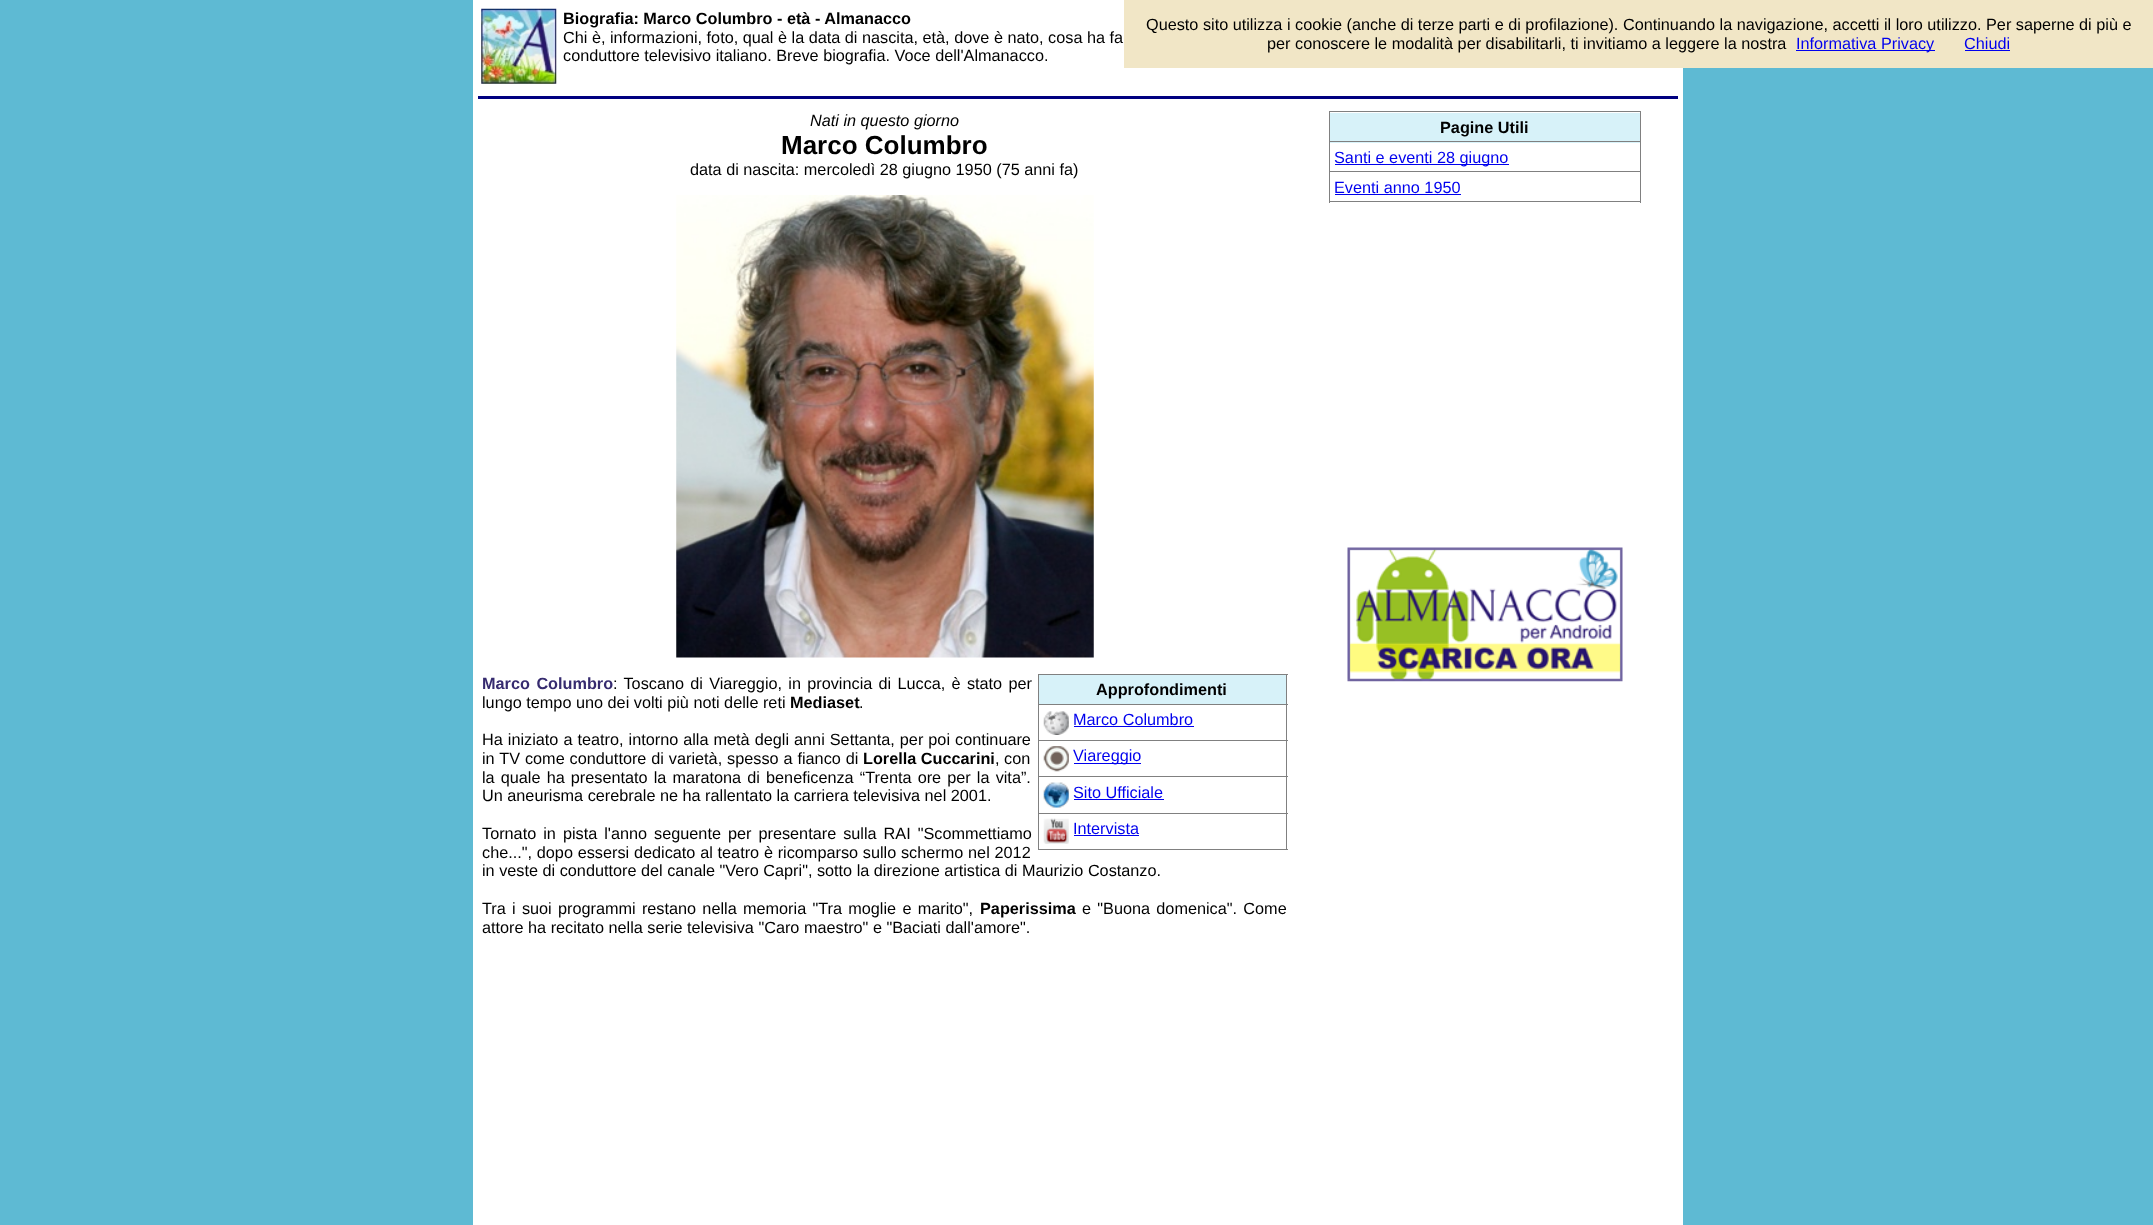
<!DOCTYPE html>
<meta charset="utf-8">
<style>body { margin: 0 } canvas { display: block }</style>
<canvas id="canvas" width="2153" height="1225"></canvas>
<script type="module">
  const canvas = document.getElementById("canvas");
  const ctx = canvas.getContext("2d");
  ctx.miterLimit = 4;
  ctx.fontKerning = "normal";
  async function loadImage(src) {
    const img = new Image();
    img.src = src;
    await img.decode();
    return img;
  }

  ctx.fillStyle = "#5ebad3";
  ctx.fillRect(0, 0, 2153, 1225);
  ctx.fillStyle = "#ffffff";
  ctx.fillRect(473, 0, 1210, 1225);
  ctx.drawImage(await loadImage("img1.png"), 481, 8, 76, 76);
  ctx.font = "bold 16.25px Liberation Sans";
  ctx.fillStyle = "#000000";
  ctx.fillText("Biografia: Marco Columbro - età - Almanacco", 563, 24);
  ctx.font = "16.25px Liberation Sans";
  ctx.fillText("Chi è, informazioni, foto, qual è la data di nascita, età, dove è nato, cosa ha fa", 563, 43);
  ctx.fillText("conduttore televisivo italiano. Breve biografia. Voce dell'Almanacco.", 563, 61);
  ctx.fillStyle = "#000080";
  ctx.fillRect(478, 96, 1200, 3);
  ctx.font = "italic 16.25px Liberation Sans";
  ctx.fillStyle = "#000000";
  ctx.fillText("Nati in questo giorno", 810, 126);
  ctx.font = "bold 26px Liberation Sans";
  ctx.fillText("Marco Columbro", 781, 154);
  ctx.font = "16.25px Liberation Sans";
  ctx.fillText("data di nascita: mercoledì 28 giugno 1950 (75 anni fa)", 690, 175);
  ctx.drawImage(await loadImage("img2.png"), 676, 195, 418, 463);
  ctx.wordSpacing = "2px";
  ctx.font = "bold 16.25px Liberation Sans";
  ctx.fillStyle = "#362b6f";
  ctx.fillText("Marco Columbro", 482, 689);
  ctx.wordSpacing = "1.75px";
  ctx.font = "16.25px Liberation Sans";
  ctx.fillStyle = "#000000";
  ctx.fillText(": Toscano di Viareggio, in provincia di Lucca, è stato per", 613, 689);
  ctx.wordSpacing = "0px";
  ctx.fillText("lungo tempo uno dei volti più noti delle reti", 482, 708);
  ctx.font = "bold 16.25px Liberation Sans";
  ctx.fillText("Mediaset", 790, 708);
  ctx.font = "16.25px Liberation Sans";
  ctx.fillText(".", 859, 708);
  ctx.wordSpacing = "0.5px";
  ctx.fillText("Ha iniziato a teatro, intorno alla metà degli anni Settanta, per poi continuare", 482, 745);
  ctx.wordSpacing = "0.4px";
  ctx.fillText("in TV come conduttore di varietà, spesso a fianco di", 482, 764);
  ctx.wordSpacing = "0px";
  ctx.font = "bold 16.25px Liberation Sans";
  ctx.fillText("Lorella Cuccarini", 863, 764);
  ctx.font = "16.25px Liberation Sans";
  ctx.fillText(", con", 995, 764);
  ctx.wordSpacing = "1.6px";
  ctx.fillText("la quale ha presentato la maratona di beneficenza “Trenta ore per la vita”.", 482, 783);
  ctx.wordSpacing = "0px";
  ctx.fillText("Un aneurisma cerebrale ne ha rallentato la carriera televisiva nel 2001.", 482, 801);
  ctx.wordSpacing = "2.5px";
  ctx.fillText("Tornato in pista l'anno seguente per presentare sulla RAI \"Scommettiamo", 482, 839);
  ctx.wordSpacing = "0.25px";
  ctx.fillText("che...\", dopo essersi dedicato al teatro è ricomparso sullo schermo nel 2012", 482, 858);
  ctx.wordSpacing = "0px";
  ctx.fillText("in veste di conduttore del canale \"Vero Capri\", sotto la direzione artistica di Maurizio Costanzo.", 482, 876);
  ctx.wordSpacing = "1.75px";
  ctx.fillText("Tra i suoi programmi restano nella memoria \"Tra moglie e marito\",", 482, 914);
  ctx.wordSpacing = "0px";
  ctx.font = "bold 16.25px Liberation Sans";
  ctx.fillText("Paperissima", 980, 914);
  ctx.wordSpacing = "1.75px";
  ctx.font = "16.25px Liberation Sans";
  ctx.fillText("e \"Buona domenica\". Come", 1082, 914);
  ctx.wordSpacing = "0px";
  ctx.fillText("attore ha recitato nella serie televisiva \"Caro maestro\" e \"Baciati dall'amore\".", 482, 933);
  ctx.fillStyle = "#808080";
  ctx.fillRect(1038, 674, 250, 1);
  ctx.fillRect(1286, 674, 1, 176);
  ctx.fillRect(1038, 849, 250, 1);
  ctx.fillRect(1038, 674, 1, 176);
  ctx.fillStyle = "#d7f2f9";
  ctx.fillRect(1039, 675, 247, 29);
  ctx.font = "bold 16.25px Liberation Sans";
  ctx.fillStyle = "#000000";
  ctx.fillText("Approfondimenti", 1096, 695);
  ctx.fillStyle = "#808080";
  ctx.fillRect(1038, 704, 250, 1);
  ctx.drawImage(await loadImage("img3.png"), 1043, 711, 26, 24);
  ctx.font = "16.25px Liberation Sans";
  ctx.fillStyle = "#0000ee";
  ctx.fillText("Marco Columbro", 1073, 725);
  ctx.fillRect(1074, 726, 120, 1);
  ctx.fillStyle = "#808080";
  ctx.fillRect(1038, 740, 250, 1);
  ctx.drawImage(await loadImage("img4.png"), 1043, 746, 26, 26);
  ctx.fillStyle = "#0000ee";
  ctx.fillRect(1074, 763, 67, 1);
  ctx.fillText("Viareggio", 1073, 761);
  ctx.fillStyle = "#808080";
  ctx.fillRect(1038, 776, 250, 1);
  ctx.drawImage(await loadImage("img5.png"), 1043, 782, 26, 26);
  ctx.fillStyle = "#0000ee";
  ctx.fillText("Sito Ufficiale", 1073, 798);
  ctx.fillRect(1074, 799, 90, 1);
  ctx.fillStyle = "#808080";
  ctx.fillRect(1038, 813, 250, 1);
  ctx.drawImage(await loadImage("img6.png"), 1043, 818, 26, 26);
  ctx.fillStyle = "#0000ee";
  ctx.fillText("Intervista", 1073, 834);
  ctx.fillRect(1074, 835, 65, 1);
  ctx.fillStyle = "#808080";
  ctx.fillRect(1329, 111, 312, 1);
  ctx.fillRect(1640, 111, 1, 92);
  ctx.fillRect(1329, 201, 312, 1);
  ctx.fillRect(1329, 111, 1, 92);
  ctx.fillStyle = "#d7f2f9";
  ctx.fillRect(1330, 113, 310, 30);
  ctx.font = "bold 16.25px Liberation Sans";
  ctx.fillStyle = "#000000";
  ctx.fillText("Pagine Utili", 1440, 133);
  ctx.fillStyle = "#808080";
  ctx.fillRect(1329, 141, 312, 1);
  ctx.fillStyle = "#0000ee";
  ctx.fillRect(1335, 164, 174, 1);
  ctx.font = "16.25px Liberation Sans";
  ctx.fillText("Santi e eventi 28 giugno", 1334, 163);
  ctx.fillStyle = "#808080";
  ctx.fillRect(1329, 171, 312, 1);
  ctx.fillStyle = "#0000ee";
  ctx.fillText("Eventi anno 1950", 1334, 193);
  ctx.fillRect(1335, 194, 126, 1);
  ctx.drawImage(await loadImage("img7.png"), 1347, 547, 276, 135);
  ctx.fillStyle = "#f1e6c6";
  ctx.fillRect(1124, 0, 1029, 68);
  ctx.fillStyle = "#000000";
  ctx.fillText("Questo sito utilizza i cookie (anche di terze parti e di profilazione). Continuando la navigazione, accetti il loro utilizzo. Per saperne di più e", 1146, 30);
  ctx.fillText("per conoscere le modalità per disabilitarli, ti invitiamo a leggere la nostra", 1267, 49);
  ctx.fillStyle = "#0000ee";
  ctx.fillRect(1796, 50, 139, 1);
  ctx.fillText("Informativa Privacy", 1796, 49);
  ctx.fillText("Chiudi", 1964, 49);
  ctx.fillRect(1965, 50, 45, 1);
</script>
